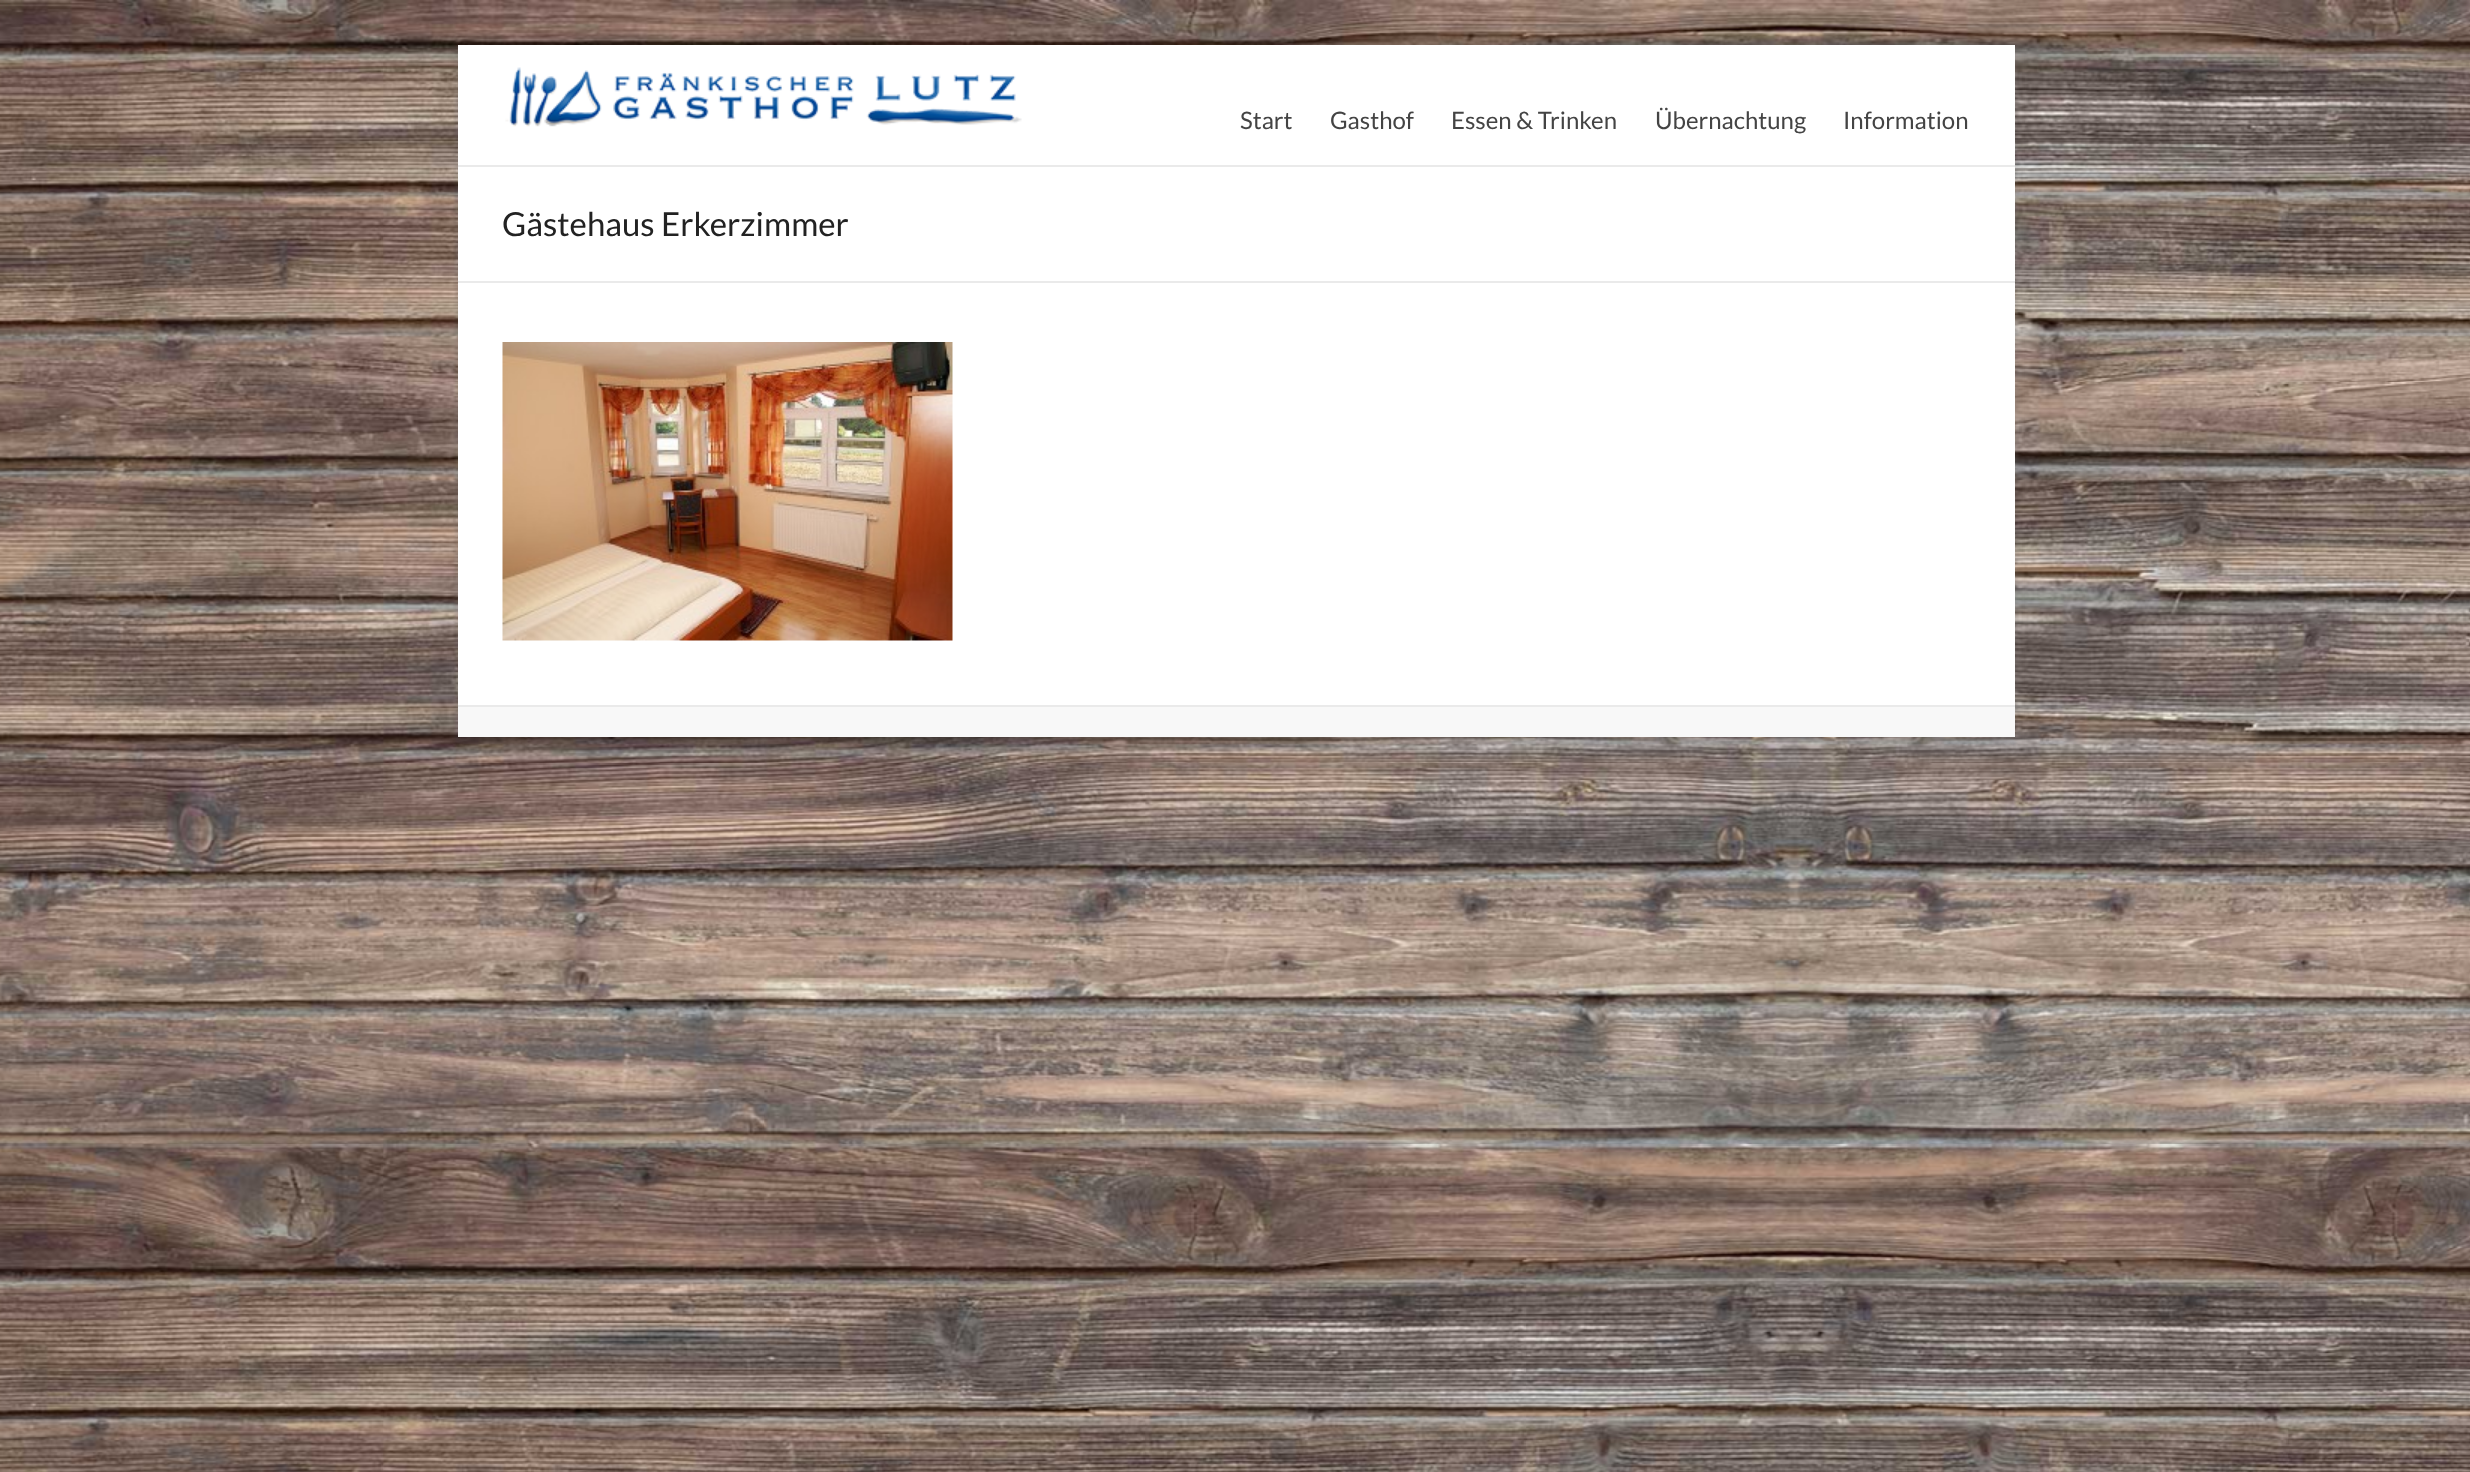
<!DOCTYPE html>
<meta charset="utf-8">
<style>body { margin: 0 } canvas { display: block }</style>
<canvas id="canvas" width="2470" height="1472"></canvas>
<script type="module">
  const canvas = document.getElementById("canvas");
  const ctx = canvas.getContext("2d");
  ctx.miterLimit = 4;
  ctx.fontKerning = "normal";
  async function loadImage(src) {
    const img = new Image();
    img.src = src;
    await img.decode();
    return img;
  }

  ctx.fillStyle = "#ffffff";
  ctx.fillRect(0, 0, 2470, 1472);
  ctx.drawImage(await loadImage("img1.png"), 0, 0, 2470, 1472);
  ctx.fillStyle = "rgba(100, 100, 100, 0.3)";
  ctx.filter = "blur(4.5px)";
  ctx.beginPath();
  ctx.rect(458, 48, 1557, 692);
  ctx.fill();
  ctx.filter = "none";
  ctx.fillStyle = "#ffffff";
  ctx.fillRect(458, 45, 1557, 660);
  ctx.fillStyle = "#eaeaea";
  ctx.fillRect(458, 165, 1557, 2);
  ctx.drawImage(await loadImage("img2.png"), 505, 67, 517, 60);
  ctx.font = "24px Lato";
  ctx.fillStyle = "#444444";
  ctx.fillText("Start", 1240, 129);
  ctx.fillText("Gasthof", 1330, 129);
  ctx.fillText("Essen & Trinken", 1451, 129);
  ctx.fillText("Übernachtung", 1655, 129);
  ctx.fillText("Information", 1843, 129);
  ctx.fillStyle = "#eaeaea";
  ctx.fillRect(458, 281, 1557, 2);
  ctx.font = "33px Lato";
  ctx.fillStyle = "#222222";
  ctx.fillText("Gästehaus Erkerzimmer", 502, 236);
  ctx.drawImage(await loadImage("img3.png"), 502, 342, 451, 299);
  ctx.fillStyle = "#f8f8f8";
  ctx.fillRect(458, 707, 1557, 30);
  ctx.fillStyle = "#eaeaea";
  ctx.fillRect(458, 705, 1557, 2);
</script>
